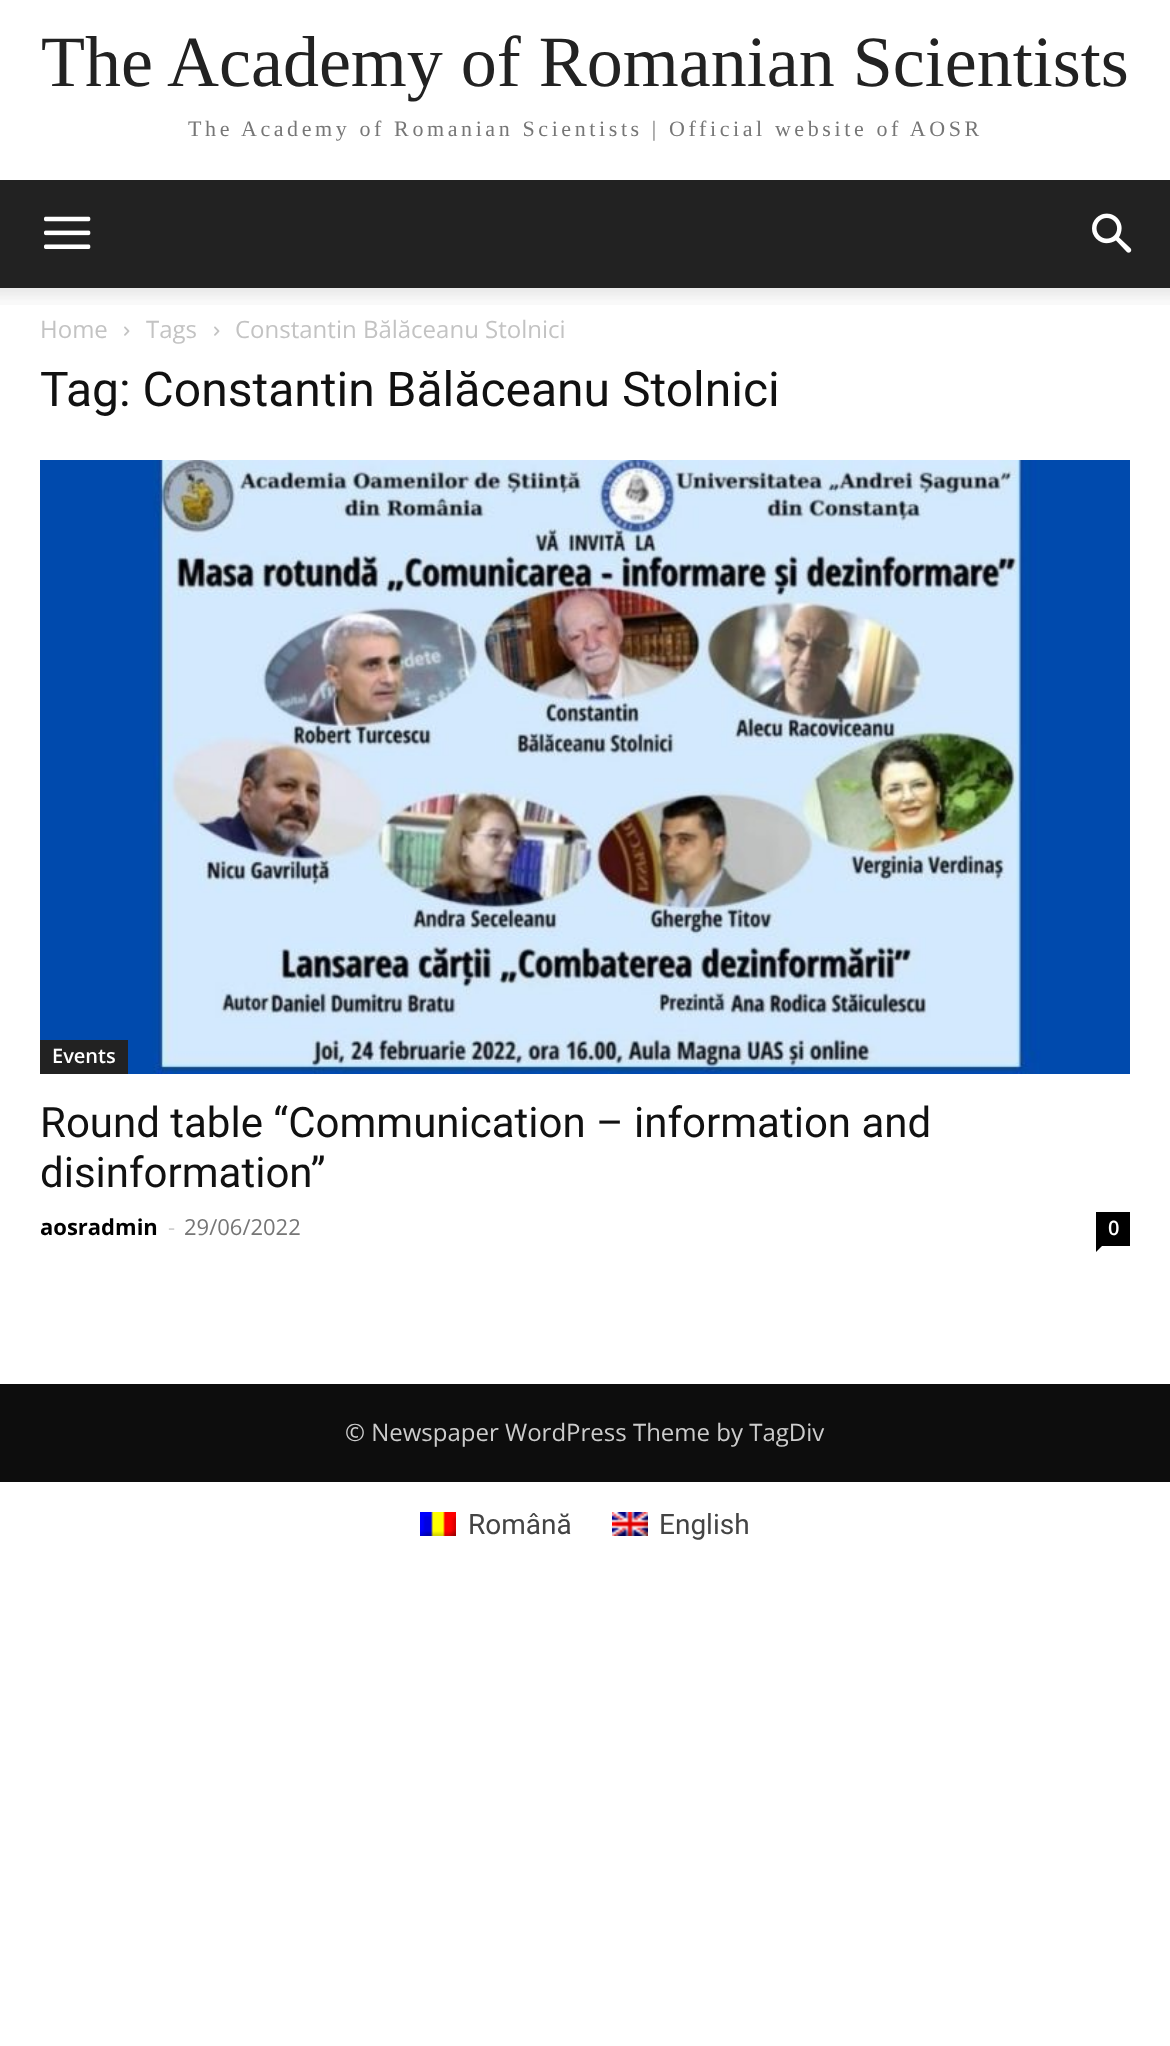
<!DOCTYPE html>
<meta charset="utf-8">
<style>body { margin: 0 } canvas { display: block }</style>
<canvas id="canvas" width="1170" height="2046"></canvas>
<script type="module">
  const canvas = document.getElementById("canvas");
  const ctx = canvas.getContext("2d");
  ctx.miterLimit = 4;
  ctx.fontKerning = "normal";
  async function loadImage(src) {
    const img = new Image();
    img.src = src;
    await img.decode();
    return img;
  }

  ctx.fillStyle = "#ffffff";
  ctx.fillRect(0, 0, 1170, 2046);
  ctx.font = "72px Liberation Serif";
  ctx.fillStyle = "#222222";
  ctx.fillText("The Academy of Romanian Scientists", 41, 86);
  ctx.letterSpacing = "3.6px";
  ctx.font = "22px Liberation Serif";
  ctx.fillStyle = "#767676";
  ctx.fillText("The Academy of Romanian Scientists | Official website of AOSR", 188, 136);
  ctx.fillStyle = "#222222";
  ctx.fillRect(0, 180, 1170, 108);
  ctx.drawImage(await loadImage("img1.png"), 44, 216, 47, 33);
  ctx.drawImage(await loadImage("img2.png"), 1092, 213, 40, 40);
  ctx.drawImage(await loadImage("img3.png"), 0, 288, 1170, 17);
  ctx.letterSpacing = "0px";
  ctx.font = "24px Open Sans";
  ctx.fillStyle = "#c3c3c3";
  ctx.fillText("Home", 40, 338);
  ctx.drawImage(await loadImage("img4.png"), 124, 326, 6, 10);
  ctx.fillText("Tags", 146, 338);
  ctx.drawImage(await loadImage("img4.png"), 214, 326, 6, 10);
  ctx.fillText("Constantin Bălăceanu Stolnici", 235, 338);
  ctx.font = "48px Roboto";
  ctx.fillStyle = "#111111";
  ctx.fillText("Tag: Constantin Bălăceanu Stolnici", 40, 406);
  ctx.drawImage(await loadImage("img5.png"), 40, 460, 1090, 614);
  ctx.fillStyle = "#222222";
  ctx.fillRect(40, 1040, 88, 34);
  ctx.font = "600 20px Open Sans";
  ctx.fillStyle = "#ffffff";
  ctx.fillText("Events", 52, 1063);
  ctx.font = "42px Roboto";
  ctx.fillStyle = "#111111";
  ctx.fillText("Round table “Communication – information and", 40, 1137);
  ctx.fillText("disinformation”", 40, 1187);
  ctx.font = "bold 22px Open Sans";
  ctx.fillStyle = "#000000";
  ctx.fillText("aosradmin", 40, 1235);
  ctx.font = "22px Open Sans";
  ctx.fillStyle = "#cccccc";
  ctx.fillText("-", 168, 1235);
  ctx.fillStyle = "#767676";
  ctx.fillText("29/06/2022", 184, 1235);
  ctx.fillStyle = "#000000";
  ctx.fillRect(1096, 1212, 34, 34);
  ctx.font = "600 20px Open Sans";
  ctx.fillStyle = "#ffffff";
  ctx.fillText("0", 1108, 1235);
  ctx.fillStyle = "#000000";
  ctx.beginPath();
  ctx.moveTo(1096, 1246);
  ctx.lineTo(1102, 1246);
  ctx.lineTo(1096, 1252);
  ctx.closePath();
  ctx.fill();
  ctx.fillStyle = "#0d0d0d";
  ctx.fillRect(0, 1384, 1170, 98);
  ctx.font = "24px Open Sans";
  ctx.fillStyle = "#cccccc";
  ctx.fillText("© Newspaper WordPress Theme by TagDiv", 345, 1441);
  ctx.drawImage(await loadImage("img6.png"), 420, 1512, 36, 24);
  ctx.font = "28px Roboto";
  ctx.fillStyle = "#444444";
  ctx.fillText("Română", 468, 1534);
  ctx.drawImage(await loadImage("img7.png"), 612, 1512, 36, 24);
  ctx.fillText("English", 659, 1534);
</script>
